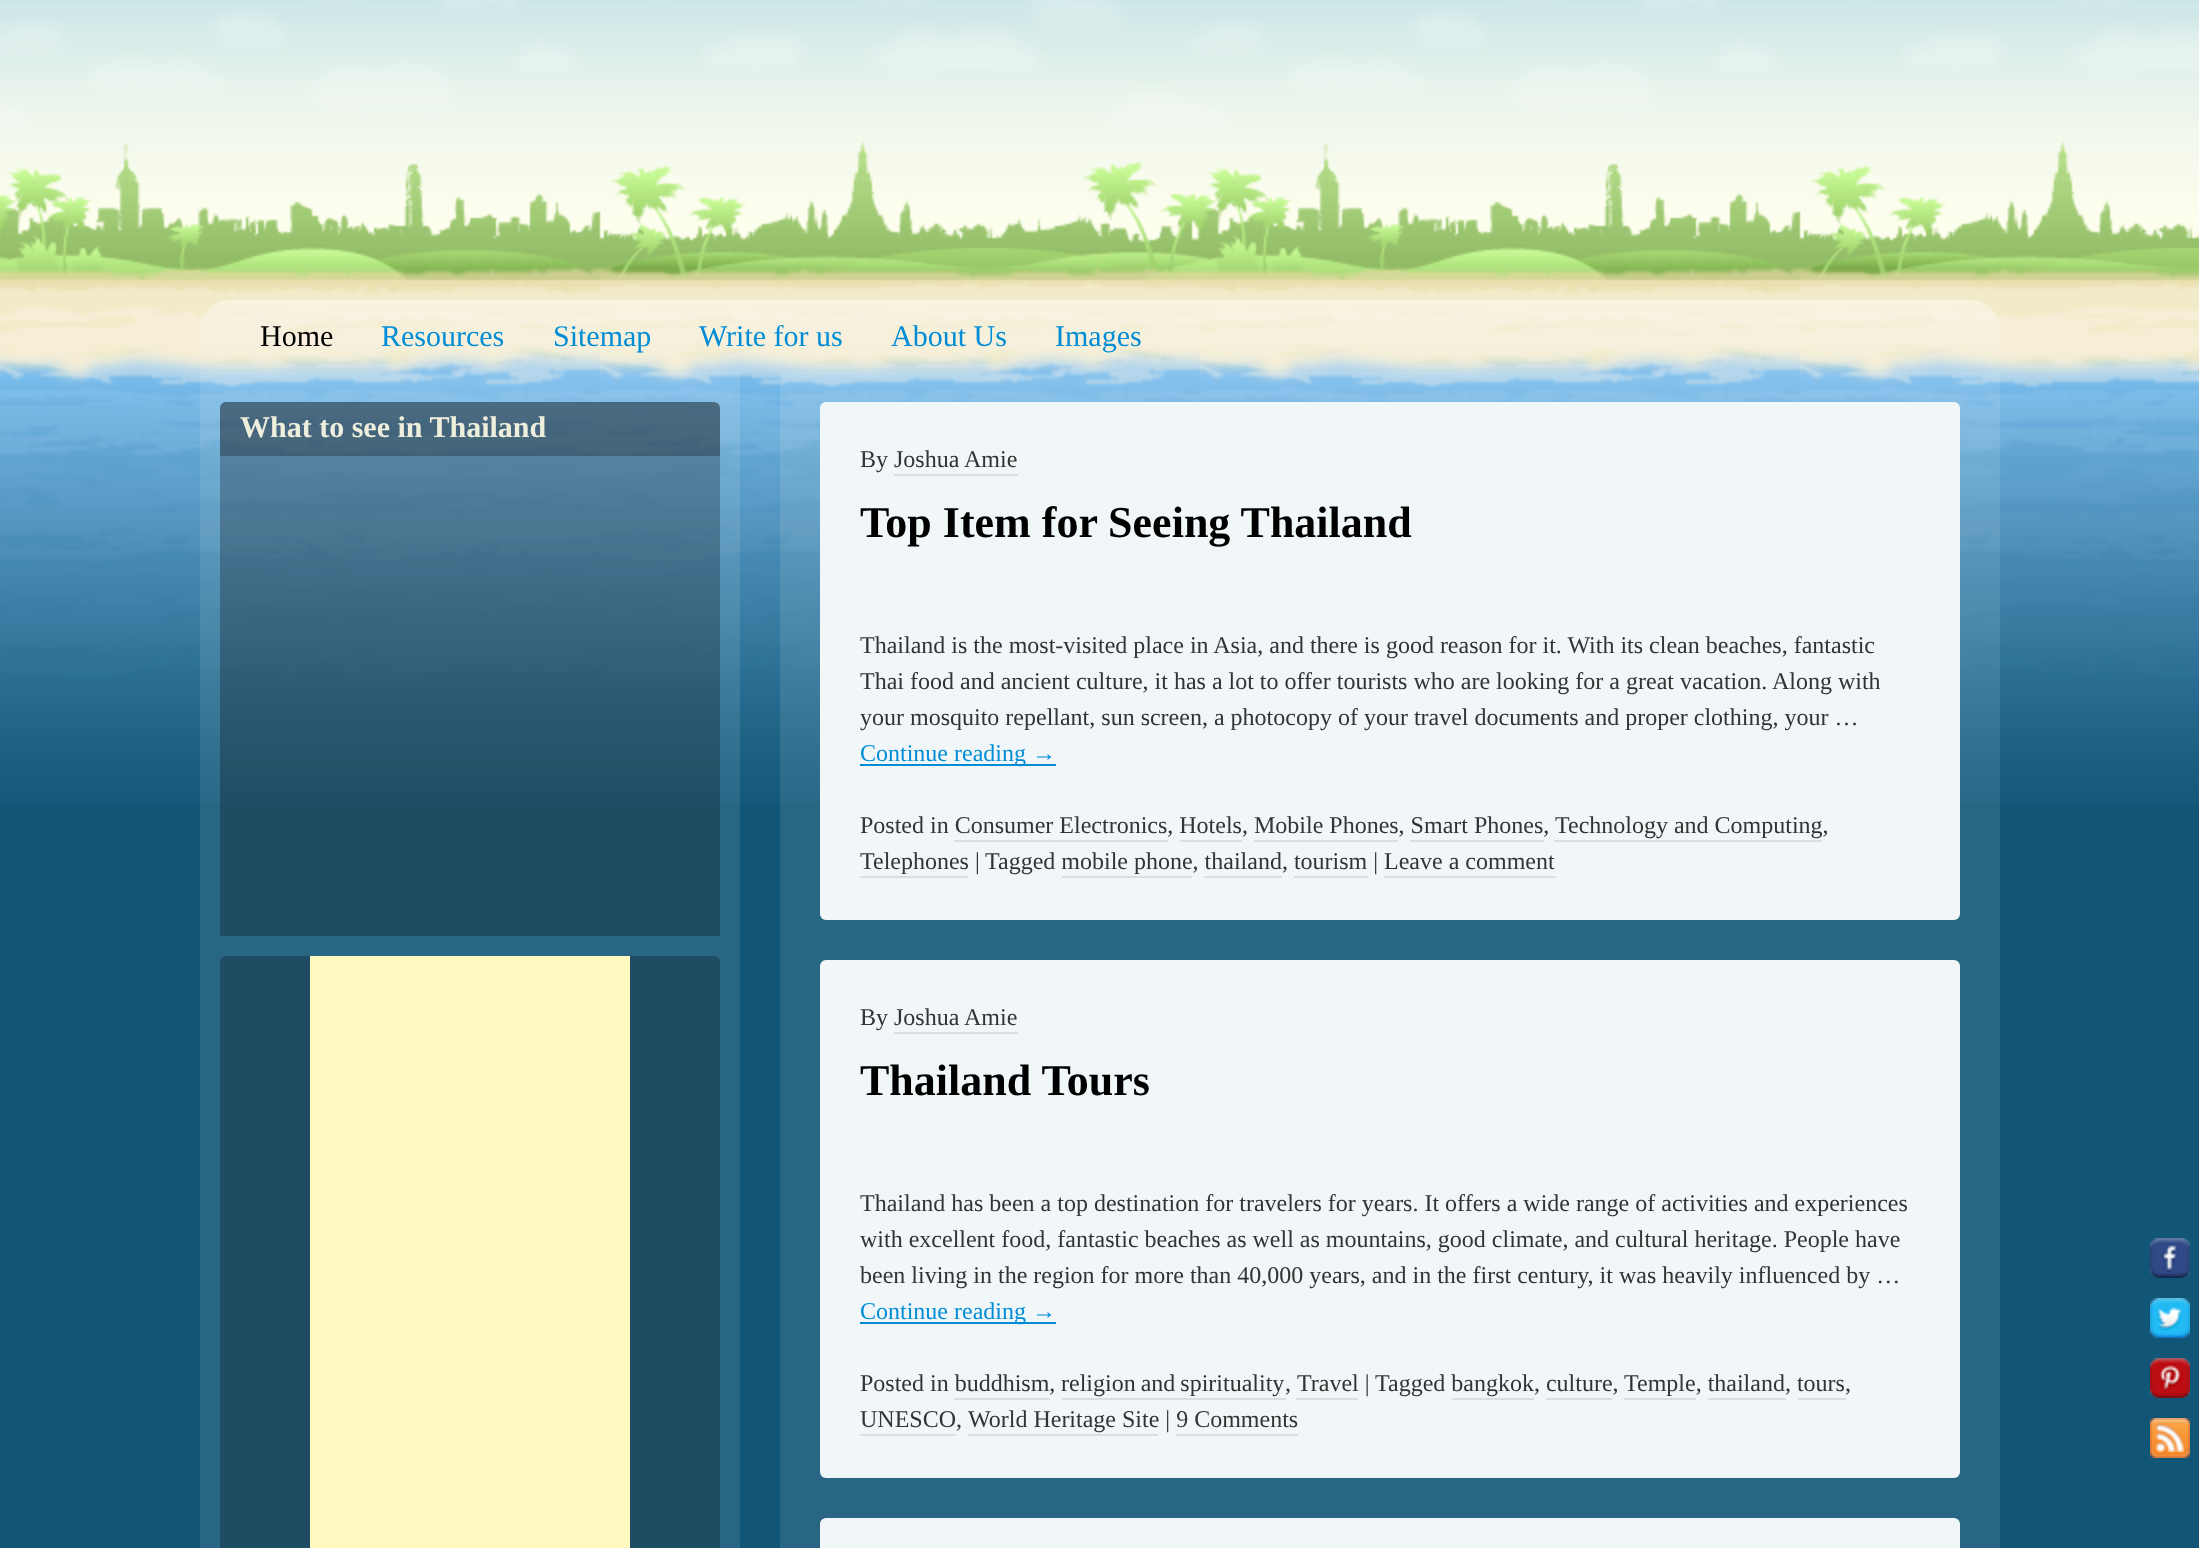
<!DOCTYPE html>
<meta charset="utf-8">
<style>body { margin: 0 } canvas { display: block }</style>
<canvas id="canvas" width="2199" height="1548"></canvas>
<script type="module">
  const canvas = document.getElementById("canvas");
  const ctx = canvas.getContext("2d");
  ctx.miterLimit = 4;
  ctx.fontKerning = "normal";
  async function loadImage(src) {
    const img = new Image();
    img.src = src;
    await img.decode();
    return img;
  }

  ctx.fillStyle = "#115577";
  ctx.fillRect(0, 0, 2199, 1548);
  ctx.drawImage(await loadImage("img1.png"), 0, 0, 2199, 300);
  ctx.drawImage(await loadImage("img2.png"), 0, 300, 2199, 502);
  ctx.drawImage(await loadImage("img3.png"), 200, 300, 1800, 72);
  ctx.font = "30px Liberation Serif";
  ctx.fillStyle = "#000000";
  ctx.fillText("Home", 260, 346);
  ctx.fillStyle = "#008dd5";
  ctx.fillText("Resources", 381, 346);
  ctx.fillText("Sitemap", 553, 346);
  ctx.fillText("Write for us", 699, 346);
  ctx.fillText("About Us", 891, 346);
  ctx.fillText("Images", 1055, 346);
  ctx.fillStyle = "rgba(255, 255, 255, 0.1)";
  ctx.fillRect(200, 372, 540, 1176);
  ctx.drawImage(await loadImage("img4.png"), 220, 402, 500, 534);
  ctx.drawImage(await loadImage("img5.png"), 220, 402, 500, 54);
  ctx.font = "bold 30px Liberation Serif";
  ctx.fillStyle = "#eeeedd";
  ctx.fillText("What to see in Thailand", 240, 437);
  ctx.drawImage(await loadImage("img6.png"), 220, 956, 500, 592);
  ctx.fillStyle = "#fff9c0";
  ctx.fillRect(310, 956, 320, 592);
  ctx.fillStyle = "rgba(255, 255, 255, 0.1)";
  ctx.fillRect(780, 372, 1220, 1176);
  ctx.fillStyle = "#f1f6f9";
  ctx.beginPath();
  ctx.roundRect(820, 402, 1140, 518, 6);
  ctx.fill();
  ctx.font = "24px Liberation Serif";
  ctx.fillStyle = "#333333";
  ctx.fillText("By Joshua Amie", 860, 467);
  ctx.fillStyle = "#dddddd";
  ctx.fillRect(894, 474, 124, 2);
  ctx.font = "bold 44px Liberation Serif";
  ctx.fillStyle = "#000000";
  ctx.fillText("Top Item for Seeing Thailand", 860, 537);
  ctx.font = "24px Liberation Serif";
  ctx.fillStyle = "#333333";
  ctx.fillText("Thailand is the most-visited place in Asia, and there is good reason for it. With its clean beaches, fantastic", 860, 653);
  ctx.fillText("Thai food and ancient culture, it has a lot to offer tourists who are looking for a great vacation. Along with", 860, 689);
  ctx.fillText("your mosquito repellant, sun screen, a photocopy of your travel documents and proper clothing, your …", 860, 725);
  ctx.fillStyle = "#008dd5";
  ctx.fillRect(860, 764, 196, 2);
  ctx.fillText("Continue reading →", 860, 761);
  ctx.fillStyle = "#333333";
  ctx.fillText("Posted in Consumer Electronics, Hotels, Mobile Phones, Smart Phones,", 860, 833);
  ctx.fillStyle = "#dddddd";
  ctx.fillRect(954, 840, 214, 2);
  ctx.fillRect(1180, 840, 62, 2);
  ctx.fillRect(1254, 840, 144, 2);
  ctx.fillRect(1410, 840, 134, 2);
  ctx.fillStyle = "#333333";
  ctx.fillText("Technology and Computing,", 1555, 833);
  ctx.fillStyle = "#dddddd";
  ctx.fillRect(1554, 840, 268, 2);
  ctx.fillStyle = "#333333";
  ctx.fillText("Telephones |", 860, 869);
  ctx.fillStyle = "#dddddd";
  ctx.fillRect(860, 876, 108, 2);
  ctx.fillStyle = "#333333";
  ctx.fillText("Tagged mobile phone, thailand, tourism | Leave a comment", 985, 869);
  ctx.fillStyle = "#dddddd";
  ctx.fillRect(1062, 876, 130, 2);
  ctx.fillRect(1204, 876, 78, 2);
  ctx.fillRect(1294, 876, 74, 2);
  ctx.fillRect(1384, 876, 172, 2);
  ctx.fillStyle = "#f1f6f9";
  ctx.beginPath();
  ctx.roundRect(820, 960, 1140, 518, 6);
  ctx.fill();
  ctx.fillStyle = "#333333";
  ctx.fillText("By Joshua Amie", 860, 1025);
  ctx.fillStyle = "#dddddd";
  ctx.fillRect(894, 1032, 124, 2);
  ctx.font = "bold 44px Liberation Serif";
  ctx.fillStyle = "#000000";
  ctx.fillText("Thailand Tours", 860, 1095);
  ctx.font = "24px Liberation Serif";
  ctx.fillStyle = "#333333";
  ctx.fillText("Thailand has been a top destination for travelers for years. It offers a wide range of activities and experiences", 860, 1211);
  ctx.fillText("with excellent food, fantastic beaches as well as mountains, good climate, and cultural heritage. People have", 860, 1247);
  ctx.fillText("been living in the region for more than 40,000 years, and in the first century, it was heavily influenced by …", 860, 1283);
  ctx.fillStyle = "#008dd5";
  ctx.fillRect(860, 1322, 196, 2);
  ctx.fillText("Continue reading →", 860, 1319);
  ctx.fillStyle = "#333333";
  ctx.fillText("Posted in buddhism,", 860, 1391);
  ctx.fillStyle = "#dddddd";
  ctx.fillRect(954, 1398, 96, 2);
  ctx.wordSpacing = "-1px";
  ctx.fillStyle = "#333333";
  ctx.fillText("religion and spirituality", 1061, 1391);
  ctx.wordSpacing = "0px";
  ctx.fillText(",", 1285, 1391);
  ctx.fillStyle = "#dddddd";
  ctx.fillRect(1062, 1398, 224, 2);
  ctx.fillRect(1296, 1398, 62, 2);
  ctx.fillStyle = "#333333";
  ctx.fillText("Travel |", 1297, 1391);
  ctx.fillText("Tagged bangkok, culture,", 1375, 1391);
  ctx.fillText("Temple, thailand, tours,", 1624, 1391);
  ctx.fillStyle = "#dddddd";
  ctx.fillRect(1624, 1398, 72, 2);
  ctx.fillRect(1452, 1398, 82, 2);
  ctx.fillRect(1546, 1398, 66, 2);
  ctx.fillRect(1708, 1398, 78, 2);
  ctx.fillRect(1798, 1398, 48, 2);
  ctx.fillStyle = "#333333";
  ctx.fillText("UNESCO,", 860, 1427);
  ctx.fillStyle = "#dddddd";
  ctx.fillRect(860, 1434, 96, 2);
  ctx.fillStyle = "#333333";
  ctx.fillText("World Heritage Site | 9 Comments", 968, 1427);
  ctx.fillStyle = "#dddddd";
  ctx.fillRect(968, 1434, 190, 2);
  ctx.fillRect(1176, 1434, 122, 2);
  ctx.fillStyle = "#f1f6f9";
  ctx.beginPath();
  ctx.roundRect(820, 1518, 1140, 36, 6);
  ctx.fill();
  ctx.drawImage(await loadImage("img7.png"), 2150, 1238, 40, 40);
  ctx.drawImage(await loadImage("img8.png"), 2150, 1298, 40, 40);
  ctx.drawImage(await loadImage("img9.png"), 2150, 1358, 40, 40);
  ctx.drawImage(await loadImage("img10.png"), 2150, 1418, 40, 40);
</script>
